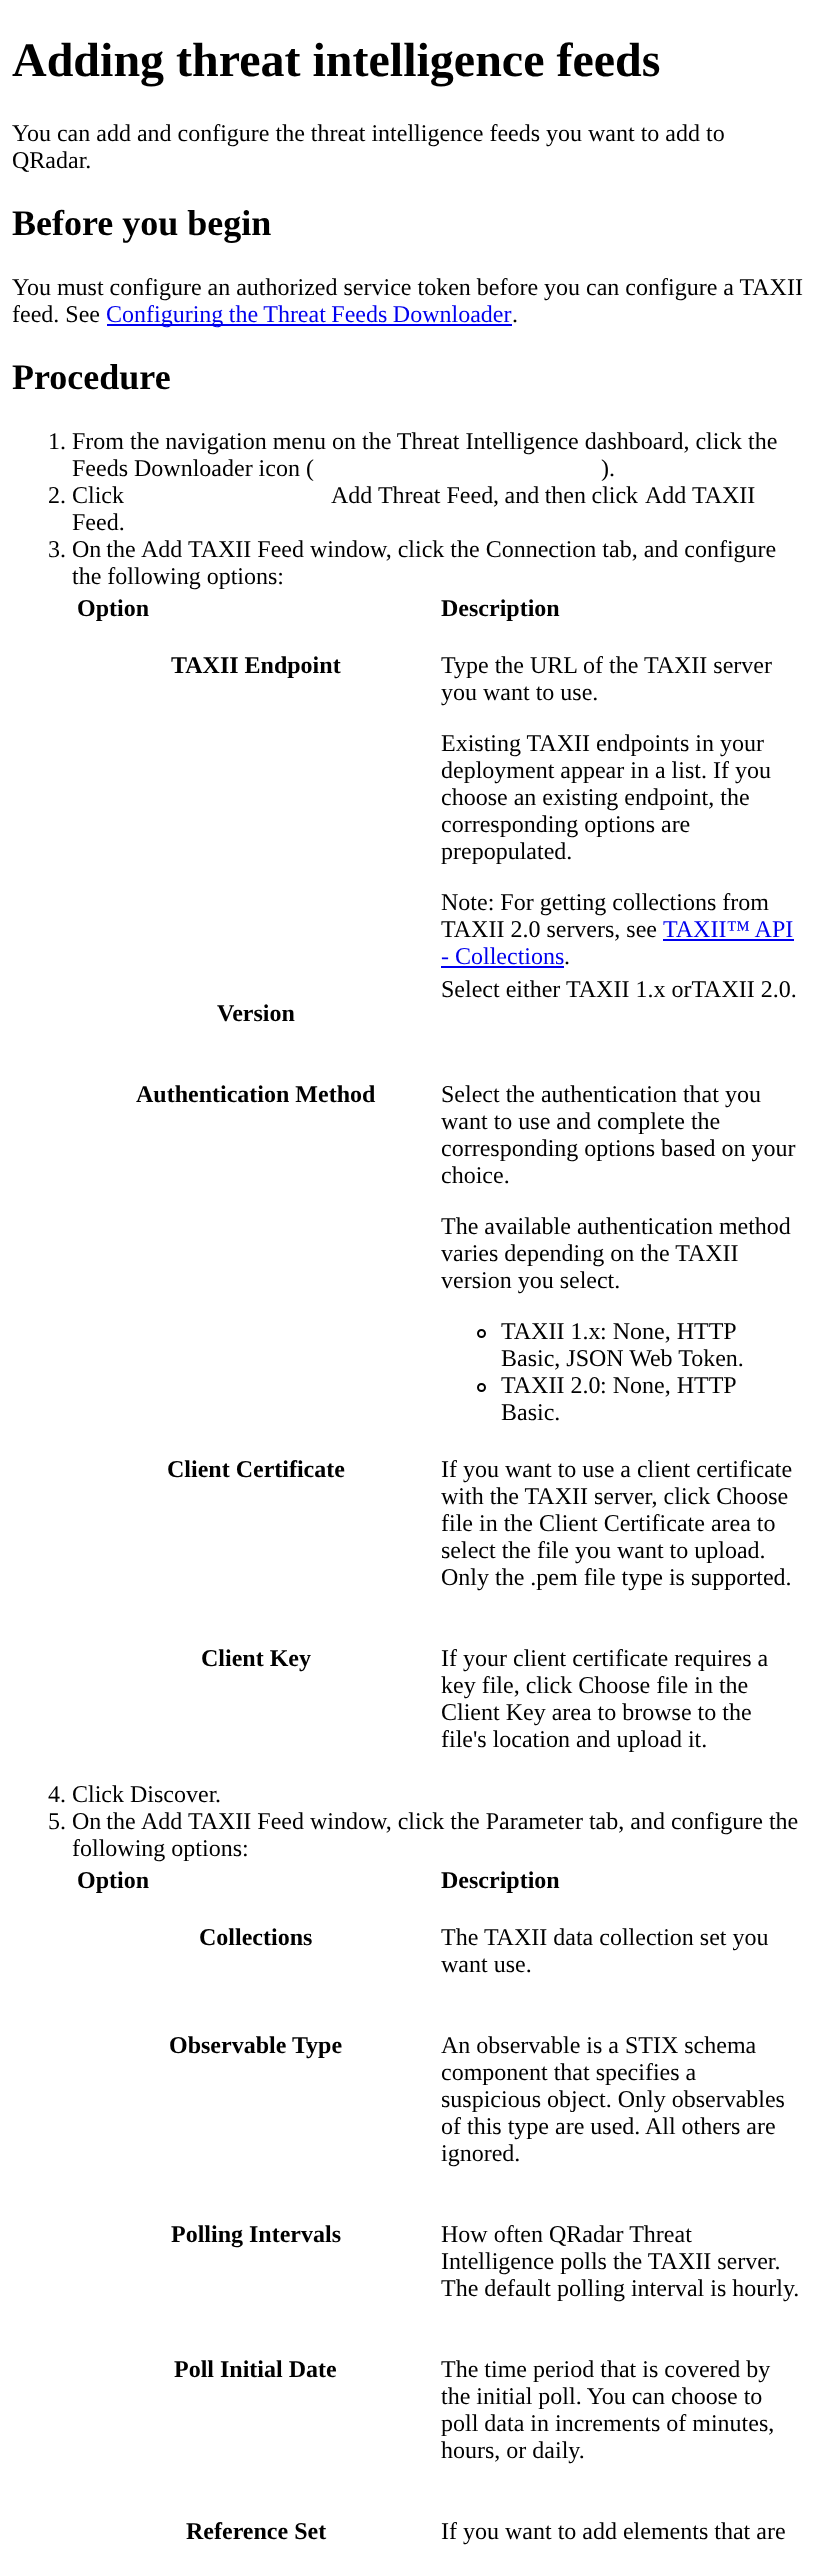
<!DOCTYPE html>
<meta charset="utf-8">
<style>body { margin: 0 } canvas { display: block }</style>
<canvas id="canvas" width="815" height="2557"></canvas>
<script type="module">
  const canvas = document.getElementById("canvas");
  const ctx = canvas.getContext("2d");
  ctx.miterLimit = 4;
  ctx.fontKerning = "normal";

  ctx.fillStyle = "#ffffff";
  ctx.fillRect(0, 0, 815, 2557);
  ctx.font = "bold 48px Liberation Serif";
  ctx.fillStyle = "#000000";
  ctx.fillText("Adding threat intelligence feeds", 12, 76);
  ctx.font = "24px Liberation Serif";
  ctx.fillText("You can add and configure the threat intelligence feeds you want to add to", 12, 141);
  ctx.fillText("QRadar.", 12, 168);
  ctx.font = "bold 36px Liberation Serif";
  ctx.fillText("Before you begin", 12, 235);
  ctx.font = "24px Liberation Serif";
  ctx.fillText("You must configure an authorized service token before you can configure a TAXII", 12, 295);
  ctx.fillText("feed. See", 12, 322);
  ctx.fillStyle = "#0000ee";
  ctx.fillRect(107, 324, 405, 2);
  ctx.wordSpacing = "-0.5px";
  ctx.fillText("Configuring the Threat Feeds Downloader", 106, 322);
  ctx.wordSpacing = "0px";
  ctx.fillStyle = "#000000";
  ctx.fillText(".", 512, 322);
  ctx.font = "bold 36px Liberation Serif";
  ctx.fillText("Procedure", 12, 389);
  ctx.font = "24px Liberation Serif";
  ctx.fillText("1. From the navigation menu on the Threat Intelligence dashboard, click the", 48, 449);
  ctx.fillText("Feeds Downloader icon (", 72, 476);
  ctx.fillText(").", 601, 476);
  ctx.fillText("2. Click", 48, 503);
  ctx.fillText("Add Threat Feed", 331, 503);
  ctx.wordSpacing = "-0.5px";
  ctx.fillText(", and then click", 493, 503);
  ctx.wordSpacing = "0px";
  ctx.fillText("Add TAXII", 645, 503);
  ctx.fillText("Feed.", 72, 530);
  ctx.fillText("3.", 48, 557);
  ctx.wordSpacing = "-1px";
  ctx.fillText("On the", 72, 557);
  ctx.wordSpacing = "0px";
  ctx.fillText("Add TAXII Feed window, click the Connection tab, and configure", 141, 557);
  ctx.fillText("the following options:", 72, 584);
  ctx.font = "bold 24px Liberation Serif";
  ctx.fillText("Option", 77, 616);
  ctx.fillText("Description", 441, 616);
  ctx.fillText("TAXII Endpoint", 171, 673);
  ctx.font = "24px Liberation Serif";
  ctx.fillText("Type the URL of the TAXII server", 441, 673);
  ctx.fillText("you want to use.", 441, 700);
  ctx.fillText("Existing TAXII endpoints in your", 441, 751);
  ctx.fillText("deployment appear in a list. If you", 441, 778);
  ctx.fillText("choose an existing endpoint, the", 441, 805);
  ctx.fillText("corresponding options are", 441, 832);
  ctx.fillText("prepopulated.", 441, 859);
  ctx.fillText("Note: For getting collections from", 441, 910);
  ctx.fillText("TAXII 2.0 servers, see", 441, 937);
  ctx.fillStyle = "#0000ee";
  ctx.fillText("TAXII™ API", 663, 937);
  ctx.fillRect(663, 939, 131, 2);
  ctx.fillText("- Collections", 441, 964);
  ctx.fillRect(441, 966, 123, 2);
  ctx.fillStyle = "#000000";
  ctx.fillText(".", 564, 964);
  ctx.fillText("Select either", 441, 997);
  ctx.fillText("TAXII 1.x orTAXII 2.0.", 566, 997);
  ctx.font = "bold 24px Liberation Serif";
  ctx.fillText("Version", 217, 1021);
  ctx.fillText("Authentication Method", 136, 1102);
  ctx.font = "24px Liberation Serif";
  ctx.fillText("Select the authentication that you", 441, 1102);
  ctx.fillText("want to use and complete the", 441, 1129);
  ctx.fillText("corresponding options based on your", 441, 1156);
  ctx.fillText("choice.", 441, 1183);
  ctx.fillText("The available authentication method", 441, 1234);
  ctx.fillText("varies depending on the TAXII", 441, 1261);
  ctx.fillText("version you select.", 441, 1288);
  ctx.beginPath();
  ctx.arc(481.5, 1333.5, 3.5, 0, Math.PI * 2);
  ctx.strokeStyle = "#000000";
  ctx.lineWidth = 2;
  ctx.stroke();
  ctx.fillText("TAXII 1.x", 501, 1339);
  ctx.fillText(": None, HTTP", 600, 1339);
  ctx.fillText("Basic, JSON Web Token.", 501, 1366);
  ctx.beginPath();
  ctx.arc(481.5, 1387.5, 3.5, 0, Math.PI * 2);
  ctx.stroke();
  ctx.fillText("TAXII 2.0", 501, 1393);
  ctx.fillText(": None, HTTP", 600, 1393);
  ctx.fillText("Basic.", 501, 1420);
  ctx.font = "bold 24px Liberation Serif";
  ctx.fillText("Client Certificate", 167, 1477);
  ctx.font = "24px Liberation Serif";
  ctx.fillText("If you want to use a client certificate", 441, 1477);
  ctx.fillText("with the TAXII server, click Choose", 441, 1504);
  ctx.fillText("file in the Client Certificate area to", 441, 1531);
  ctx.fillText("select the file you want to upload.", 441, 1558);
  ctx.fillText("Only the .pem file type is supported.", 441, 1585);
  ctx.font = "bold 24px Liberation Serif";
  ctx.fillText("Client Key", 201, 1666);
  ctx.font = "24px Liberation Serif";
  ctx.fillText("If your client certificate requires a", 441, 1666);
  ctx.fillText("key file, click Choose file in the", 441, 1693);
  ctx.fillText("Client Key area to browse to the", 441, 1720);
  ctx.fillText("file's location and upload it.", 441, 1747);
  ctx.fillText("4. Click Discover", 48, 1802);
  ctx.fillText(".", 215, 1802);
  ctx.fillText("5.", 48, 1829);
  ctx.wordSpacing = "-1px";
  ctx.fillText("On the", 72, 1829);
  ctx.wordSpacing = "0px";
  ctx.fillText("Add TAXII Feed window, click the Parameter tab, and configure the", 141, 1829);
  ctx.fillText("following options:", 72, 1856);
  ctx.font = "bold 24px Liberation Serif";
  ctx.fillText("Option", 77, 1888);
  ctx.fillText("Description", 441, 1888);
  ctx.fillText("Collections", 199, 1945);
  ctx.font = "24px Liberation Serif";
  ctx.fillText("The TAXII data collection set you", 441, 1945);
  ctx.fillText("want use.", 441, 1972);
  ctx.font = "bold 24px Liberation Serif";
  ctx.fillText("Observable Type", 169, 2053);
  ctx.font = "24px Liberation Serif";
  ctx.fillText("An observable is a STIX schema", 441, 2053);
  ctx.fillText("component that specifies a", 441, 2080);
  ctx.fillText("suspicious object. Only observables", 441, 2107);
  ctx.fillText("of this type are used. All others are", 441, 2134);
  ctx.fillText("ignored.", 441, 2161);
  ctx.font = "bold 24px Liberation Serif";
  ctx.fillText("Polling Intervals", 171, 2242);
  ctx.font = "24px Liberation Serif";
  ctx.fillText("How often QRadar Threat", 441, 2242);
  ctx.fillText("Intelligence polls the TAXII server.", 441, 2269);
  ctx.fillText("The default polling interval is hourly.", 441, 2296);
  ctx.font = "bold 24px Liberation Serif";
  ctx.fillText("Poll Initial Date", 174, 2377);
  ctx.font = "24px Liberation Serif";
  ctx.fillText("The time period that is covered by", 441, 2377);
  ctx.fillText("the initial poll. You can choose to", 441, 2404);
  ctx.fillText("poll data in increments of minutes,", 441, 2431);
  ctx.fillText("hours, or daily.", 441, 2458);
  ctx.font = "bold 24px Liberation Serif";
  ctx.fillText("Reference Set", 186, 2539);
  ctx.font = "24px Liberation Serif";
  ctx.fillText("If you want to add elements that are", 441, 2539);
</script>
